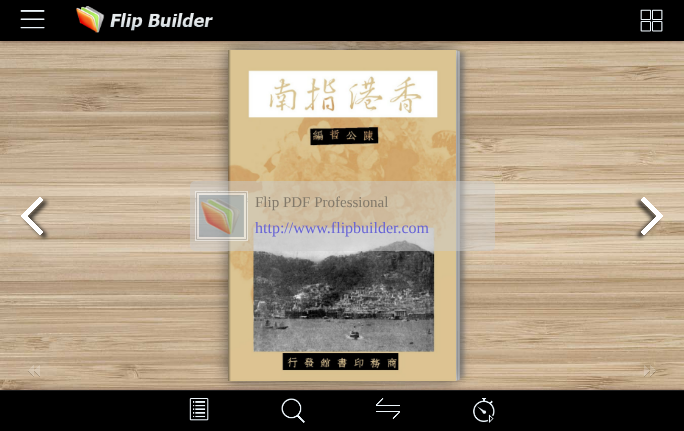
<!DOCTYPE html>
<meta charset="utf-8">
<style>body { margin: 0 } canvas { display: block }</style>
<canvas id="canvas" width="684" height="431"></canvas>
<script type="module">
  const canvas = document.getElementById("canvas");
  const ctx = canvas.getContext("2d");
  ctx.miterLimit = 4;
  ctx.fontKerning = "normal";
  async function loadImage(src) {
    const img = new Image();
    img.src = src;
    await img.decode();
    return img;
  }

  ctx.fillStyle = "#ffffff";
  ctx.fillRect(0, 0, 684, 431);
  ctx.drawImage(await loadImage("img8.png"), 0, 41, 684, 349);
  ctx.fillStyle = "rgba(40, 0, 0, 0.5)";
  ctx.filter = "blur(2.5px)";
  ctx.beginPath();
  ctx.rect(0, 0, 684, 41);
  ctx.fill();
  ctx.filter = "none";
  ctx.fillStyle = "rgba(125, 125, 125, 0.7)";
  ctx.filter = "blur(2px)";
  ctx.beginPath();
  ctx.rect(457, 53, 7, 325);
  ctx.fill();
  ctx.filter = "none";
  ctx.drawImage(await loadImage("img5.png"), 456, 50, 4, 50);
  ctx.drawImage(await loadImage("img6.png"), 456, 100, 4, 231);
  ctx.drawImage(await loadImage("img7.png"), 456, 331, 4, 50);
  ctx.fillStyle = "rgba(40, 40, 40, 0.7)";
  ctx.filter = "blur(7.5px)";
  ctx.beginPath();
  ctx.rect(228, 50, 228, 331);
  ctx.fill();
  ctx.filter = "none";
  ctx.fillStyle = "#000000";
  ctx.fillRect(0, 0, 684, 41);
  ctx.drawImage(await loadImage("img1.png"), 20, 10, 25, 19);
  ctx.drawImage(await loadImage("img2.png"), 76, 6, 137, 27);
  ctx.drawImage(await loadImage("img3.png"), 640, 9, 23, 23);
  ctx.drawImage(await loadImage("img4.png"), 228, 50, 228, 331);
  ctx.drawImage(await loadImage("img9.png"), 21, 197, 29, 44);
  ctx.fillStyle = "rgba(204, 204, 204, 0.5)";
  ctx.beginPath();
  ctx.roundRect(190, 181, 305, 70, 5);
  ctx.fill();
  ctx.drawImage(await loadImage("img10.png"), 195, 191, 53, 50);
  ctx.font = "15px Liberation Serif";
  ctx.fillStyle = "#82796a";
  ctx.fillText("Flip PDF Professional", 255, 207);
  ctx.font = "16px Liberation Serif";
  ctx.fillStyle = "#6864d5";
  ctx.fillText("http://www.flipbuilder.com", 255, 233);
  ctx.drawImage(await loadImage("img11.png"), 634, 197, 29, 44);
  ctx.drawImage(await loadImage("img12.png"), 28, 365, 12, 12);
  ctx.drawImage(await loadImage("img13.png"), 644, 365, 12, 12);
  ctx.fillStyle = "rgba(40, 0, 0, 0.5)";
  ctx.filter = "blur(2.5px)";
  ctx.beginPath();
  ctx.rect(0, 390, 684, 41);
  ctx.fill();
  ctx.filter = "none";
  ctx.fillStyle = "#000000";
  ctx.fillRect(0, 391, 684, 40);
  ctx.fillStyle = "#1e1e1e";
  ctx.fillRect(0, 390, 684, 1);
  ctx.drawImage(await loadImage("img14.png"), 189, 398, 20, 23);
  ctx.drawImage(await loadImage("img15.png"), 281, 398, 24, 25);
  ctx.drawImage(await loadImage("img16.png"), 376, 398, 24, 21);
  ctx.drawImage(await loadImage("img17.png"), 473, 398, 22, 25);
</script>
